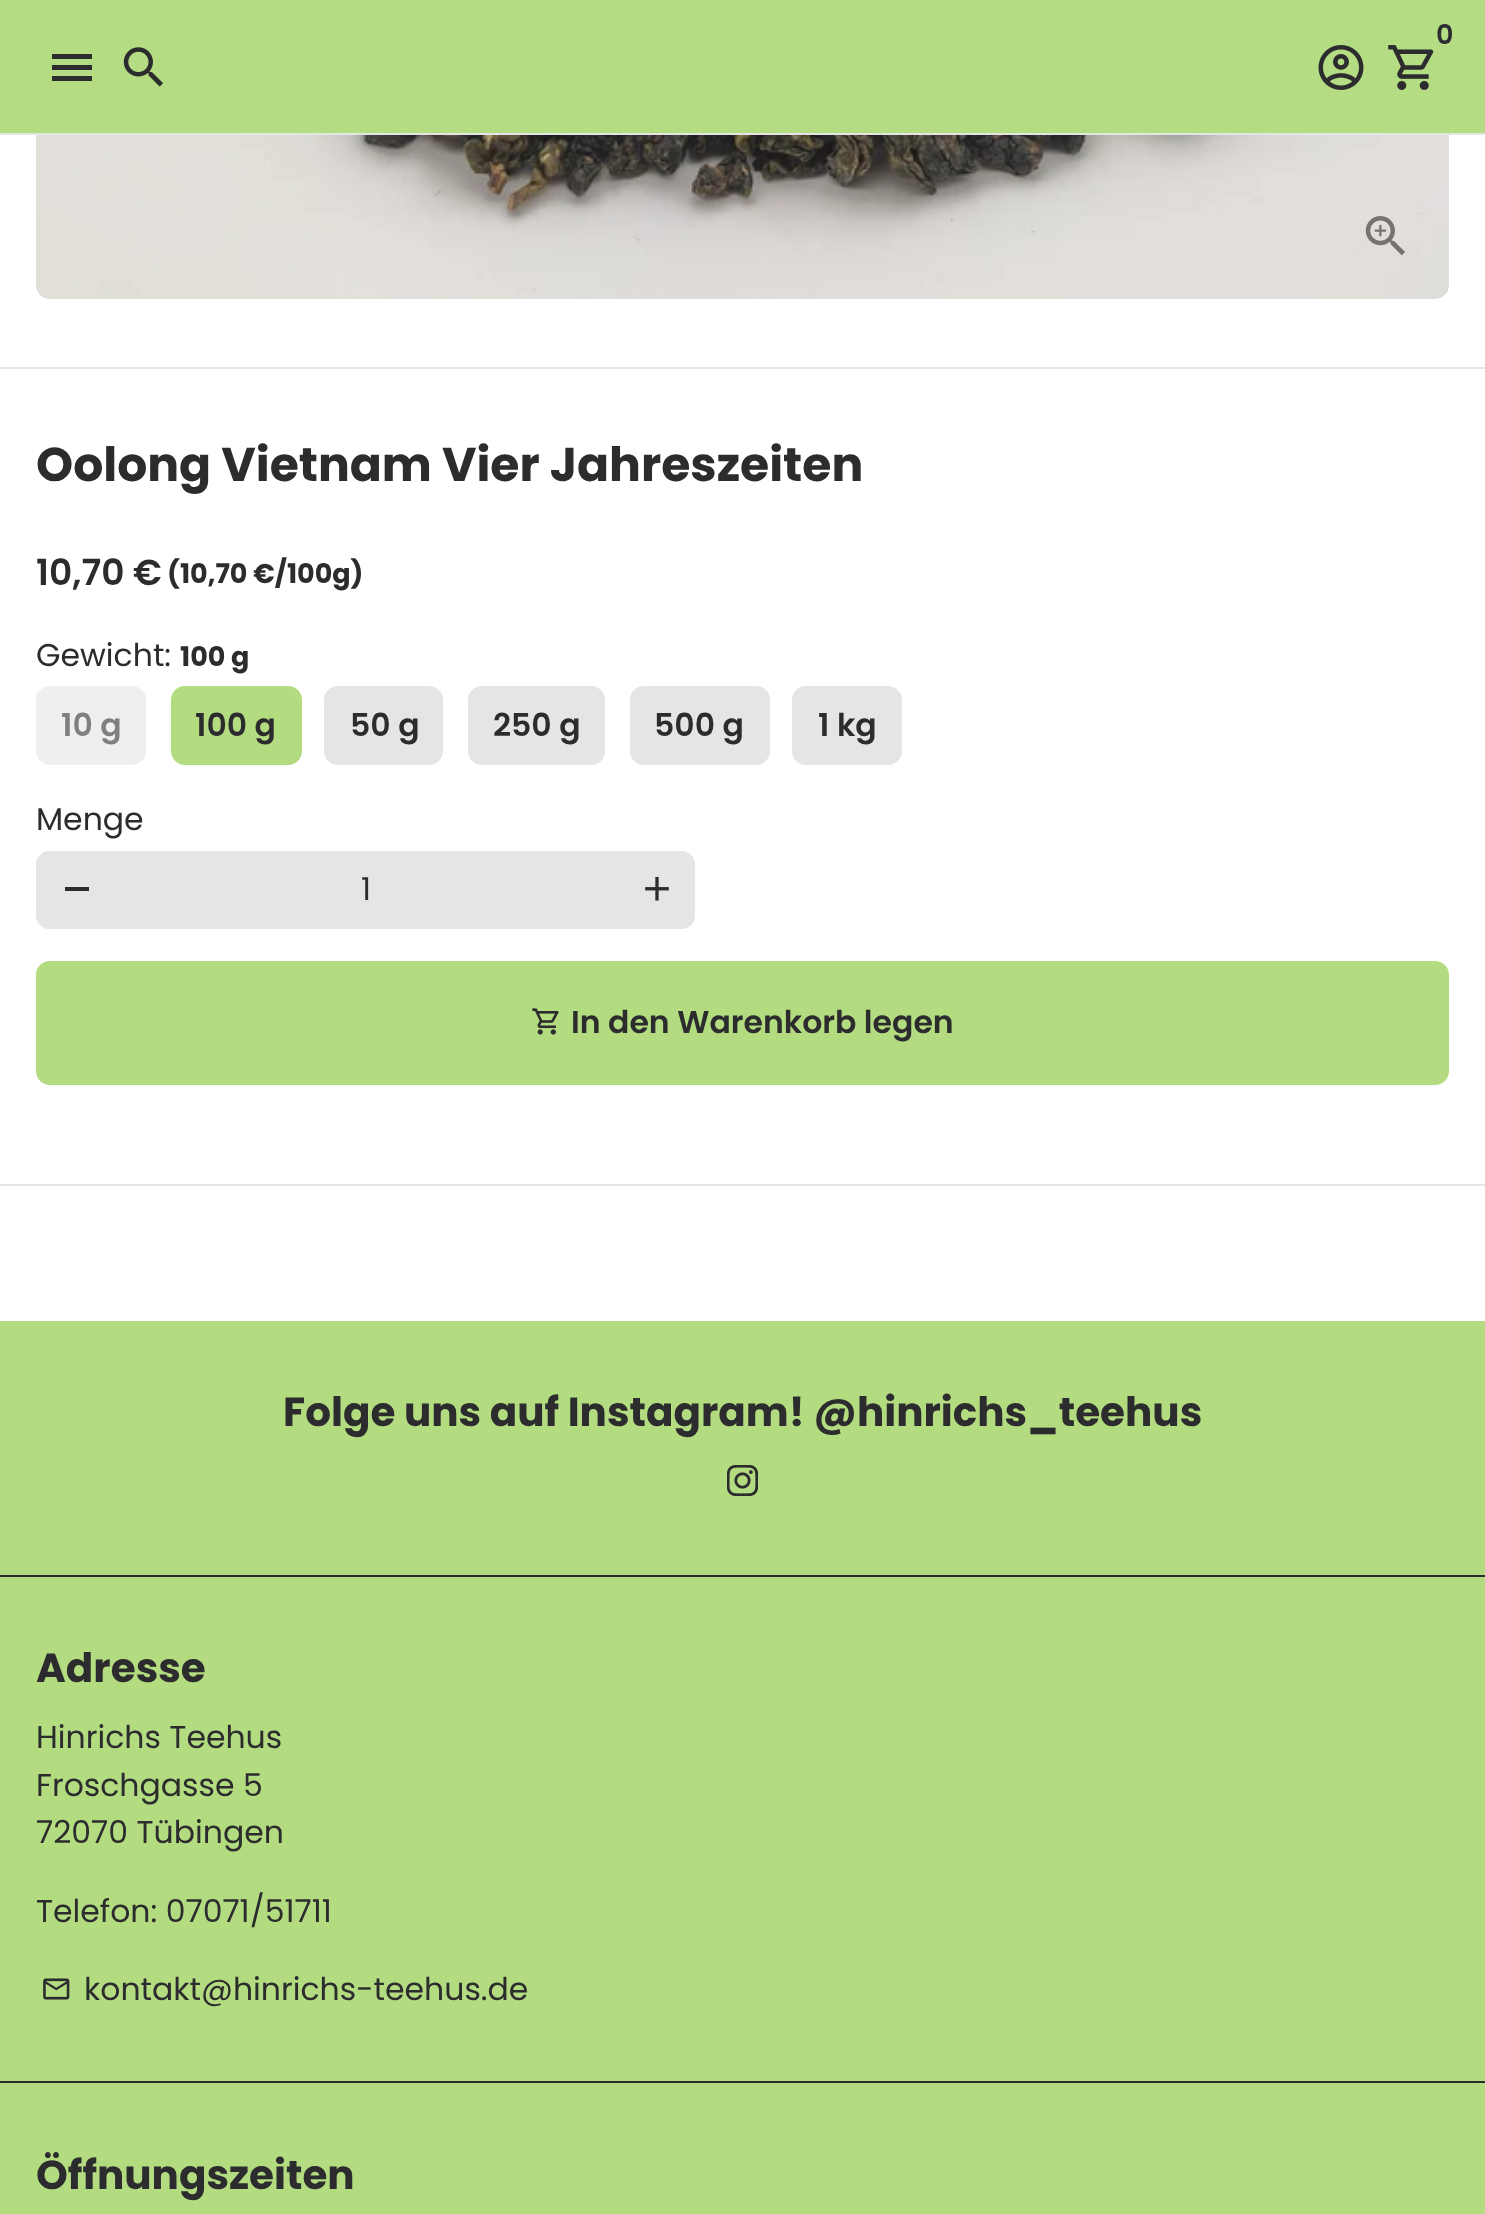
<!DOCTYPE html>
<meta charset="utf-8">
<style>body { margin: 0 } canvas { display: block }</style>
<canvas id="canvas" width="1485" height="2214"></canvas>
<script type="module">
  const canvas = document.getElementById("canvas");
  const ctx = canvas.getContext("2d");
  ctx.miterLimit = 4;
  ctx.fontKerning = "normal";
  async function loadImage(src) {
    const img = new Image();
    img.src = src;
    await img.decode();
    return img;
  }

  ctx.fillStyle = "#ffffff";
  ctx.fillRect(0, 0, 1485, 2214);
  ctx.fillStyle = "#faf8ff";
  ctx.beginPath();
  ctx.roundRect(36, -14, 1413, 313, 14);
  ctx.fill();
  ctx.fillStyle = "#b4dc83";
  ctx.fillRect(0, 0, 1485, 133);
  ctx.fillStyle = "#e5e5e5";
  ctx.fillRect(0, 133, 1485, 2);
  ctx.font = "600 27px Poppins";
  ctx.fillStyle = "#2c2b2d";
  ctx.fillText("0", 1436, 44);
  ctx.drawImage(await loadImage("img1.png"), 1388, 45, 46, 45);
  ctx.drawImage(await loadImage("img2.png"), 1318, 45, 46, 45);
  ctx.beginPath();
  ctx.moveTo(52, 81);
  ctx.lineTo(92, 81);
  ctx.lineTo(92, 76);
  ctx.lineTo(52, 76);
  ctx.closePath();
  ctx.moveTo(52, 70);
  ctx.lineTo(92, 70);
  ctx.lineTo(92, 65);
  ctx.lineTo(52, 65);
  ctx.closePath();
  ctx.moveTo(52, 54);
  ctx.lineTo(52, 59);
  ctx.lineTo(92, 59);
  ctx.lineTo(92, 54);
  ctx.closePath();
  ctx.fill();
  ctx.drawImage(await loadImage("img3.png"), 123, 47, 40, 40);
  ctx.drawImage(await loadImage("img4.png"), 36, 135, 1413, 164);
  ctx.drawImage(await loadImage("img5.png"), 1365, 216, 40, 40);
  ctx.fillStyle = "#e5e5e5";
  ctx.fillRect(0, 367, 1485, 2);
  ctx.font = "bold 47.25px Poppins";
  ctx.fillStyle = "#2c2b2d";
  ctx.fillText("Oolong Vietnam Vier Jahreszeiten", 36, 481);
  ctx.font = "600 36px Poppins";
  ctx.fillText("10,70 €", 36, 585);
  ctx.font = "bold 27px Poppins";
  ctx.fillText("(10,70 €/100g)", 167, 583);
  ctx.font = "31.5px Poppins";
  ctx.fillText("Gewicht:", 36, 666);
  ctx.font = "bold 27px Poppins";
  ctx.fillText("100 g", 180, 666);
  ctx.fillStyle = "#efefef";
  ctx.beginPath();
  ctx.roundRect(37, 687, 108, 77, 13);
  ctx.fill();
  ctx.strokeStyle = "#efefef";
  ctx.lineWidth = 2;
  ctx.stroke();
  ctx.font = "600 31.5px Poppins";
  ctx.fillStyle = "#808081";
  ctx.fillText("10 g", 61, 736);
  ctx.fillStyle = "#b3dc81";
  ctx.beginPath();
  ctx.roundRect(172, 687, 129, 77, 13);
  ctx.fill();
  ctx.strokeStyle = "#b3dc81";
  ctx.stroke();
  ctx.fillStyle = "#2c2b2d";
  ctx.fillText("100 g", 195, 736);
  ctx.fillStyle = "#e5e5e5";
  ctx.beginPath();
  ctx.roundRect(325, 687, 117, 77, 13);
  ctx.fill();
  ctx.strokeStyle = "#e5e5e5";
  ctx.stroke();
  ctx.fillStyle = "#2c2b2d";
  ctx.fillText("50 g", 350, 736);
  ctx.fillStyle = "#e5e5e5";
  ctx.beginPath();
  ctx.roundRect(469, 687, 135, 77, 13);
  ctx.fill();
  ctx.stroke();
  ctx.fillStyle = "#2c2b2d";
  ctx.fillText("250 g", 493, 736);
  ctx.fillStyle = "#e5e5e5";
  ctx.beginPath();
  ctx.roundRect(631, 687, 138, 77, 13);
  ctx.fill();
  ctx.stroke();
  ctx.fillStyle = "#2c2b2d";
  ctx.fillText("500 g", 654, 736);
  ctx.fillStyle = "#e5e5e5";
  ctx.beginPath();
  ctx.roundRect(793, 687, 108, 77, 13);
  ctx.fill();
  ctx.stroke();
  ctx.fillStyle = "#2c2b2d";
  ctx.fillText("1 kg", 818, 736);
  ctx.font = "31.5px Poppins";
  ctx.fillText("Menge", 36, 830);
  ctx.fillStyle = "#e5e5e5";
  ctx.beginPath();
  ctx.roundRect(37, 852, 657, 76, 13);
  ctx.fill();
  ctx.stroke();
  ctx.beginPath();
  ctx.roundRect(37, 852, 77, 76, 13);
  ctx.fill();
  ctx.stroke();
  ctx.fillStyle = "#2c2b2d";
  ctx.fillRect(65, 887, 24, 4);
  ctx.fillText("1", 361, 900);
  ctx.fillStyle = "#e5e5e5";
  ctx.beginPath();
  ctx.roundRect(618, 852, 76, 76, 13);
  ctx.fill();
  ctx.stroke();
  ctx.drawImage(await loadImage("img6.png"), 645, 876, 24, 25);
  ctx.fillStyle = "#b3dc81";
  ctx.beginPath();
  ctx.roundRect(37, 962, 1411, 122, 13);
  ctx.fill();
  ctx.strokeStyle = "#b3dc81";
  ctx.stroke();
  ctx.drawImage(await loadImage("img7.png"), 532, 1008, 27, 27);
  ctx.font = "600 31.5px Poppins";
  ctx.fillStyle = "#2c2b2d";
  ctx.fillText("In den Warenkorb legen", 571, 1033);
  ctx.fillStyle = "#e5e5e5";
  ctx.fillRect(0, 1184, 1485, 2);
  ctx.fillStyle = "#b3dc81";
  ctx.fillRect(0, 1321, 1485, 893);
  ctx.fillStyle = "#2c2b2d";
  ctx.fillRect(0, 1575, 1485, 2);
  ctx.font = "bold 40.5px Poppins";
  ctx.fillText("Folge uns auf Instagram! @hinrichs_teehus", 283, 1426);
  ctx.drawImage(await loadImage("img8.png"), 727, 1465, 31, 31);
  ctx.fillText("Adresse", 36, 1682);
  ctx.font = "31.5px Poppins";
  ctx.fillText("Hinrichs Teehus", 36, 1748);
  ctx.fillText("Froschgasse 5", 36, 1796);
  ctx.fillText("72070 Tübingen", 36, 1843);
  ctx.fillText("Telefon: 07071/51711", 36, 1922);
  ctx.drawImage(await loadImage("img9.png"), 43, 1978, 27, 22);
  ctx.fillText("kontakt@hinrichs-teehus.de", 84, 2000);
  ctx.fillRect(0, 2081, 1485, 2);
  ctx.font = "bold 40.5px Poppins";
  ctx.fillText("Öffnungszeiten", 36, 2189);
</script>
